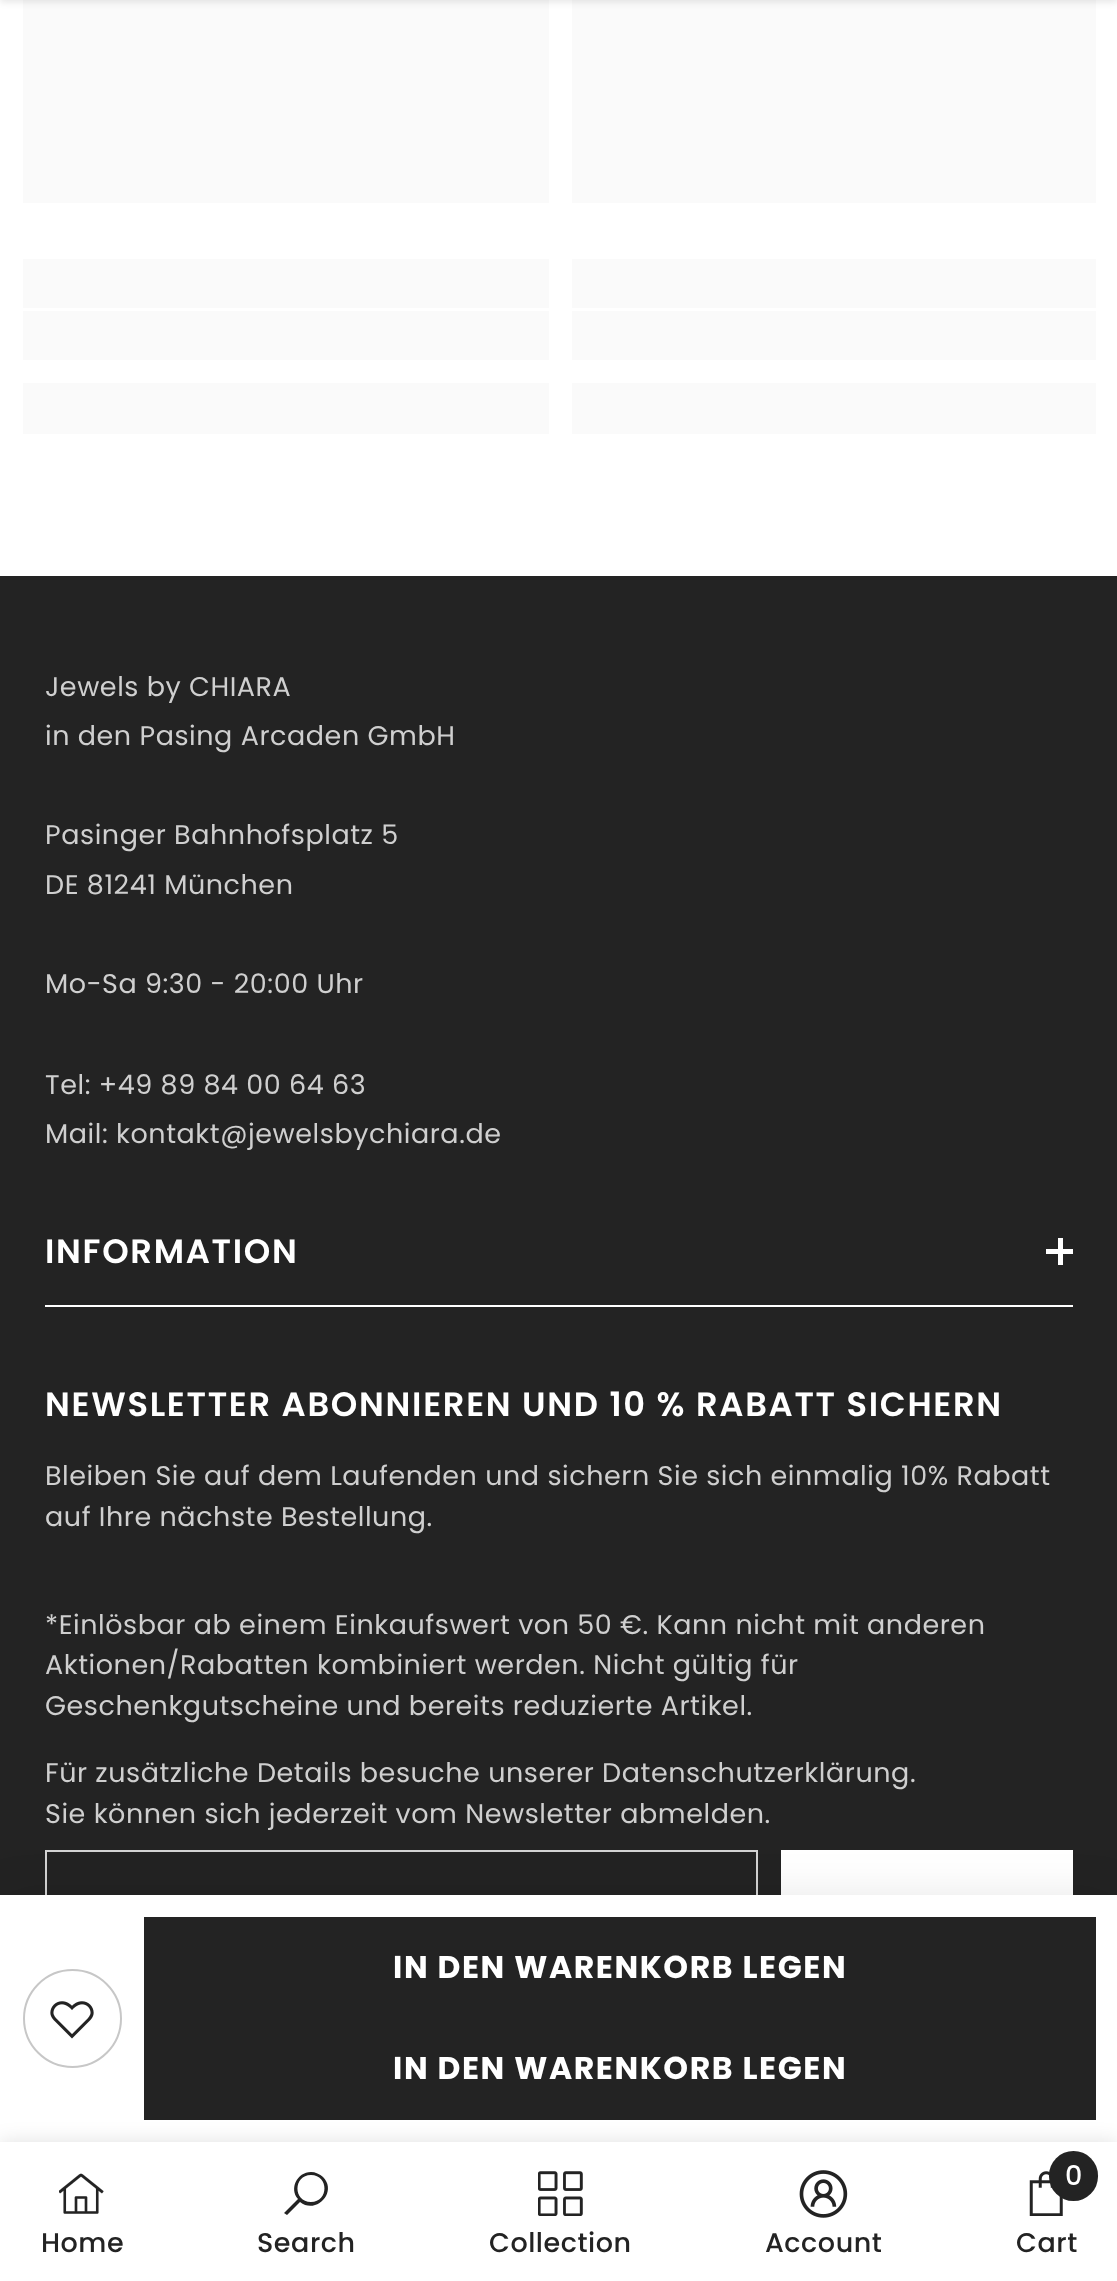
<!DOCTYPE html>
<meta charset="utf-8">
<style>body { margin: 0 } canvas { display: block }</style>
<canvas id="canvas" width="1117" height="2281"></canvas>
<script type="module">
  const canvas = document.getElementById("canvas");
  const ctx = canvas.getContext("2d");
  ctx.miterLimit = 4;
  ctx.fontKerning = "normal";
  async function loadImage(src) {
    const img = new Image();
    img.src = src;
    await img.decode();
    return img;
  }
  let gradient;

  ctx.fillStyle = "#ffffff";
  ctx.fillRect(0, 0, 1117, 2281);
  ctx.fillStyle = "#fafafa";
  ctx.fillRect(23, 0, 526, 203);
  ctx.fillRect(572, 0, 524, 203);
  ctx.fillStyle = "rgba(0, 0, 0, 0.1)";
  ctx.filter = "blur(3.5px)";
  ctx.beginPath();
  ctx.rect(0, -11, 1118, 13);
  ctx.fill();
  ctx.filter = "none";
  ctx.fillStyle = "#232323";
  ctx.fillRect(0, 576, 1117, 1319);
  ctx.letterSpacing = "0.55px";
  ctx.font = "27px Poppins";
  ctx.fillStyle = "#cfcfcf";
  ctx.fillText("Jewels by CHIARA", 45, 696);
  ctx.fillText("in den Pasing Arcaden GmbH", 45, 745);
  ctx.fillText("Pasinger Bahnhofsplatz 5", 45, 844);
  ctx.fillText("DE 81241 München", 45, 894);
  ctx.fillText("Mo-Sa 9:30 - 20:00 Uhr", 45, 993);
  ctx.fillText("Tel: +49 89 84 00 64 63", 45, 1094);
  ctx.fillText("Mail: kontakt@jewelsbychiara.de", 45, 1143);
  ctx.fillStyle = "#ffffff";
  ctx.fillRect(45, 1305, 1028, 2);
  ctx.letterSpacing = "1.7px";
  ctx.font = "600 33.75px Poppins";
  ctx.fillText("INFORMATION", 45, 1263);
  ctx.fillRect(1058, 1238, 5, 27);
  ctx.fillRect(1046, 1249, 27, 5);
  ctx.fillText("NEWSLETTER ABONNIEREN UND 10 % RABATT SICHERN", 45, 1416);
  ctx.letterSpacing = "0.55px";
  ctx.font = "27px Poppins";
  ctx.fillStyle = "#cfcfcf";
  ctx.fillText("Bleiben Sie auf dem Laufenden und sichern Sie sich einmalig 10% Rabatt", 45, 1485);
  ctx.fillText("auf Ihre nächste Bestellung.", 45, 1526);
  ctx.fillText("*Einlösbar ab einem Einkaufswert von 50 €. Kann nicht mit anderen", 45, 1634);
  ctx.fillText("Aktionen/Rabatten kombiniert werden. Nicht gültig für", 45, 1674);
  ctx.fillText("Geschenkgutscheine und bereits reduzierte Artikel.", 45, 1715);
  ctx.fillText("Für zusätzliche Details besuche unserer Datenschutzerklärung.", 45, 1782);
  ctx.fillText("Sie können sich jederzeit vom Newsletter abmelden.", 45, 1823);
  ctx.strokeStyle = "#d3d3d3";
  ctx.lineWidth = 2;
  ctx.strokeRect(46, 1851, 711, 97);
  ctx.fillStyle = "#ffffff";
  ctx.fillRect(781, 1850, 292, 45);
  gradient = ctx.createLinearGradient(-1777, 284, 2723, 283);
  gradient.addColorStop(0.04, "#fafafa");
  gradient.addColorStop(0.25, "#f1f2f3");
  gradient.addColorStop(0.36, "#fafafa");
  ctx.fillStyle = gradient;
  ctx.fillRect(23, 259, 526, 49);
  gradient = ctx.createLinearGradient(-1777, 335, 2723, 335);
  gradient.addColorStop(0.04, "#fafafa");
  gradient.addColorStop(0.25, "#f1f2f3");
  gradient.addColorStop(0.36, "#fafafa");
  ctx.fillStyle = gradient;
  ctx.fillRect(23, 311, 526, 49);
  gradient = ctx.createLinearGradient(-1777, 408, 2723, 408);
  gradient.addColorStop(0.04, "#fafafa");
  gradient.addColorStop(0.25, "#f1f2f3");
  gradient.addColorStop(0.36, "#fafafa");
  ctx.fillStyle = gradient;
  ctx.fillRect(23, 383, 526, 51);
  gradient = ctx.createLinearGradient(-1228, 284, 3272, 283);
  gradient.addColorStop(0.04, "#fafafa");
  gradient.addColorStop(0.25, "#f1f2f3");
  gradient.addColorStop(0.36, "#fafafa");
  ctx.fillStyle = gradient;
  ctx.fillRect(572, 259, 524, 49);
  gradient = ctx.createLinearGradient(-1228, 335, 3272, 335);
  gradient.addColorStop(0.04, "#fafafa");
  gradient.addColorStop(0.25, "#f1f2f3");
  gradient.addColorStop(0.36, "#fafafa");
  ctx.fillStyle = gradient;
  ctx.fillRect(572, 311, 524, 49);
  gradient = ctx.createLinearGradient(-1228, 408, 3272, 408);
  gradient.addColorStop(0.04, "#fafafa");
  gradient.addColorStop(0.25, "#f1f2f3");
  gradient.addColorStop(0.36, "#fafafa");
  ctx.fillStyle = gradient;
  ctx.fillRect(572, 383, 524, 51);
  ctx.fillStyle = "rgba(0, 0, 0, 0.1)";
  ctx.filter = "blur(22.5px)";
  ctx.beginPath();
  ctx.rect(0, 1897, 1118, 247);
  ctx.fill();
  ctx.filter = "none";
  ctx.fillStyle = "#ffffff";
  ctx.fillRect(0, 1895, 1117, 247);
  ctx.beginPath();
  ctx.arc(72.5, 2018.5, 48.5, 0, Math.PI * 2);
  ctx.strokeStyle = "#c7c7c7";
  ctx.stroke();
  ctx.drawImage(await loadImage("img1.png"), 50, 2001, 44, 38);
  ctx.fillStyle = "#232323";
  ctx.fillRect(144, 1917, 952, 203);
  ctx.letterSpacing = "1.6px";
  ctx.font = "bold 31.5px Poppins";
  ctx.fillStyle = "#ffffff";
  ctx.fillText("IN DEN WARENKORB LEGEN", 393, 1978);
  ctx.fillText("IN DEN WARENKORB LEGEN", 393, 2079);
  ctx.fillStyle = "rgba(0, 0, 0, 0.12)";
  ctx.filter = "blur(10px)";
  ctx.beginPath();
  ctx.rect(0, 2142, 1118, 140);
  ctx.fill();
  ctx.filter = "none";
  ctx.fillStyle = "#ffffff";
  ctx.fillRect(0, 2142, 1117, 139);
  ctx.drawImage(await loadImage("img2.png"), 59, 2173, 45, 41);
  ctx.letterSpacing = "0.55px";
  ctx.font = "500 27px Poppins";
  ctx.fillStyle = "#232323";
  ctx.fillText("Home", 41, 2252);
  ctx.beginPath();
  ctx.moveTo(311, 2172);
  ctx.bezierCurveTo(297, 2172, 289, 2189, 298, 2199);
  ctx.lineTo(284, 2213);
  ctx.lineTo(287, 2215);
  ctx.lineTo(300, 2202);
  ctx.bezierCurveTo(316, 2215, 338, 2192, 323, 2177);
  ctx.bezierCurveTo(320, 2174, 315, 2172, 311, 2172);
  ctx.closePath();
  ctx.moveTo(311, 2175);
  ctx.bezierCurveTo(329, 2175, 329, 2202, 311, 2202);
  ctx.bezierCurveTo(293, 2202, 293, 2175, 311, 2175);
  ctx.closePath();
  ctx.fill();
  ctx.fillText("Search", 257, 2252);
  ctx.drawImage(await loadImage("img3.png"), 538, 2171, 45, 45);
  ctx.fillText("Collection", 489, 2252);
  ctx.drawImage(await loadImage("img4.png"), 799, 2170, 49, 48);
  ctx.fillText("Account", 765, 2252);
  ctx.drawImage(await loadImage("img5.png"), 1029, 2171, 34, 45);
  ctx.beginPath();
  ctx.roundRect(1049, 2151, 49, 50, 24.5);
  ctx.fill();
  ctx.letterSpacing = "0px";
  ctx.fillStyle = "#ffffff";
  ctx.fillText("0", 1065, 2185);
  ctx.letterSpacing = "0.55px";
  ctx.fillStyle = "#232323";
  ctx.fillText("Cart", 1016, 2252);
</script>
